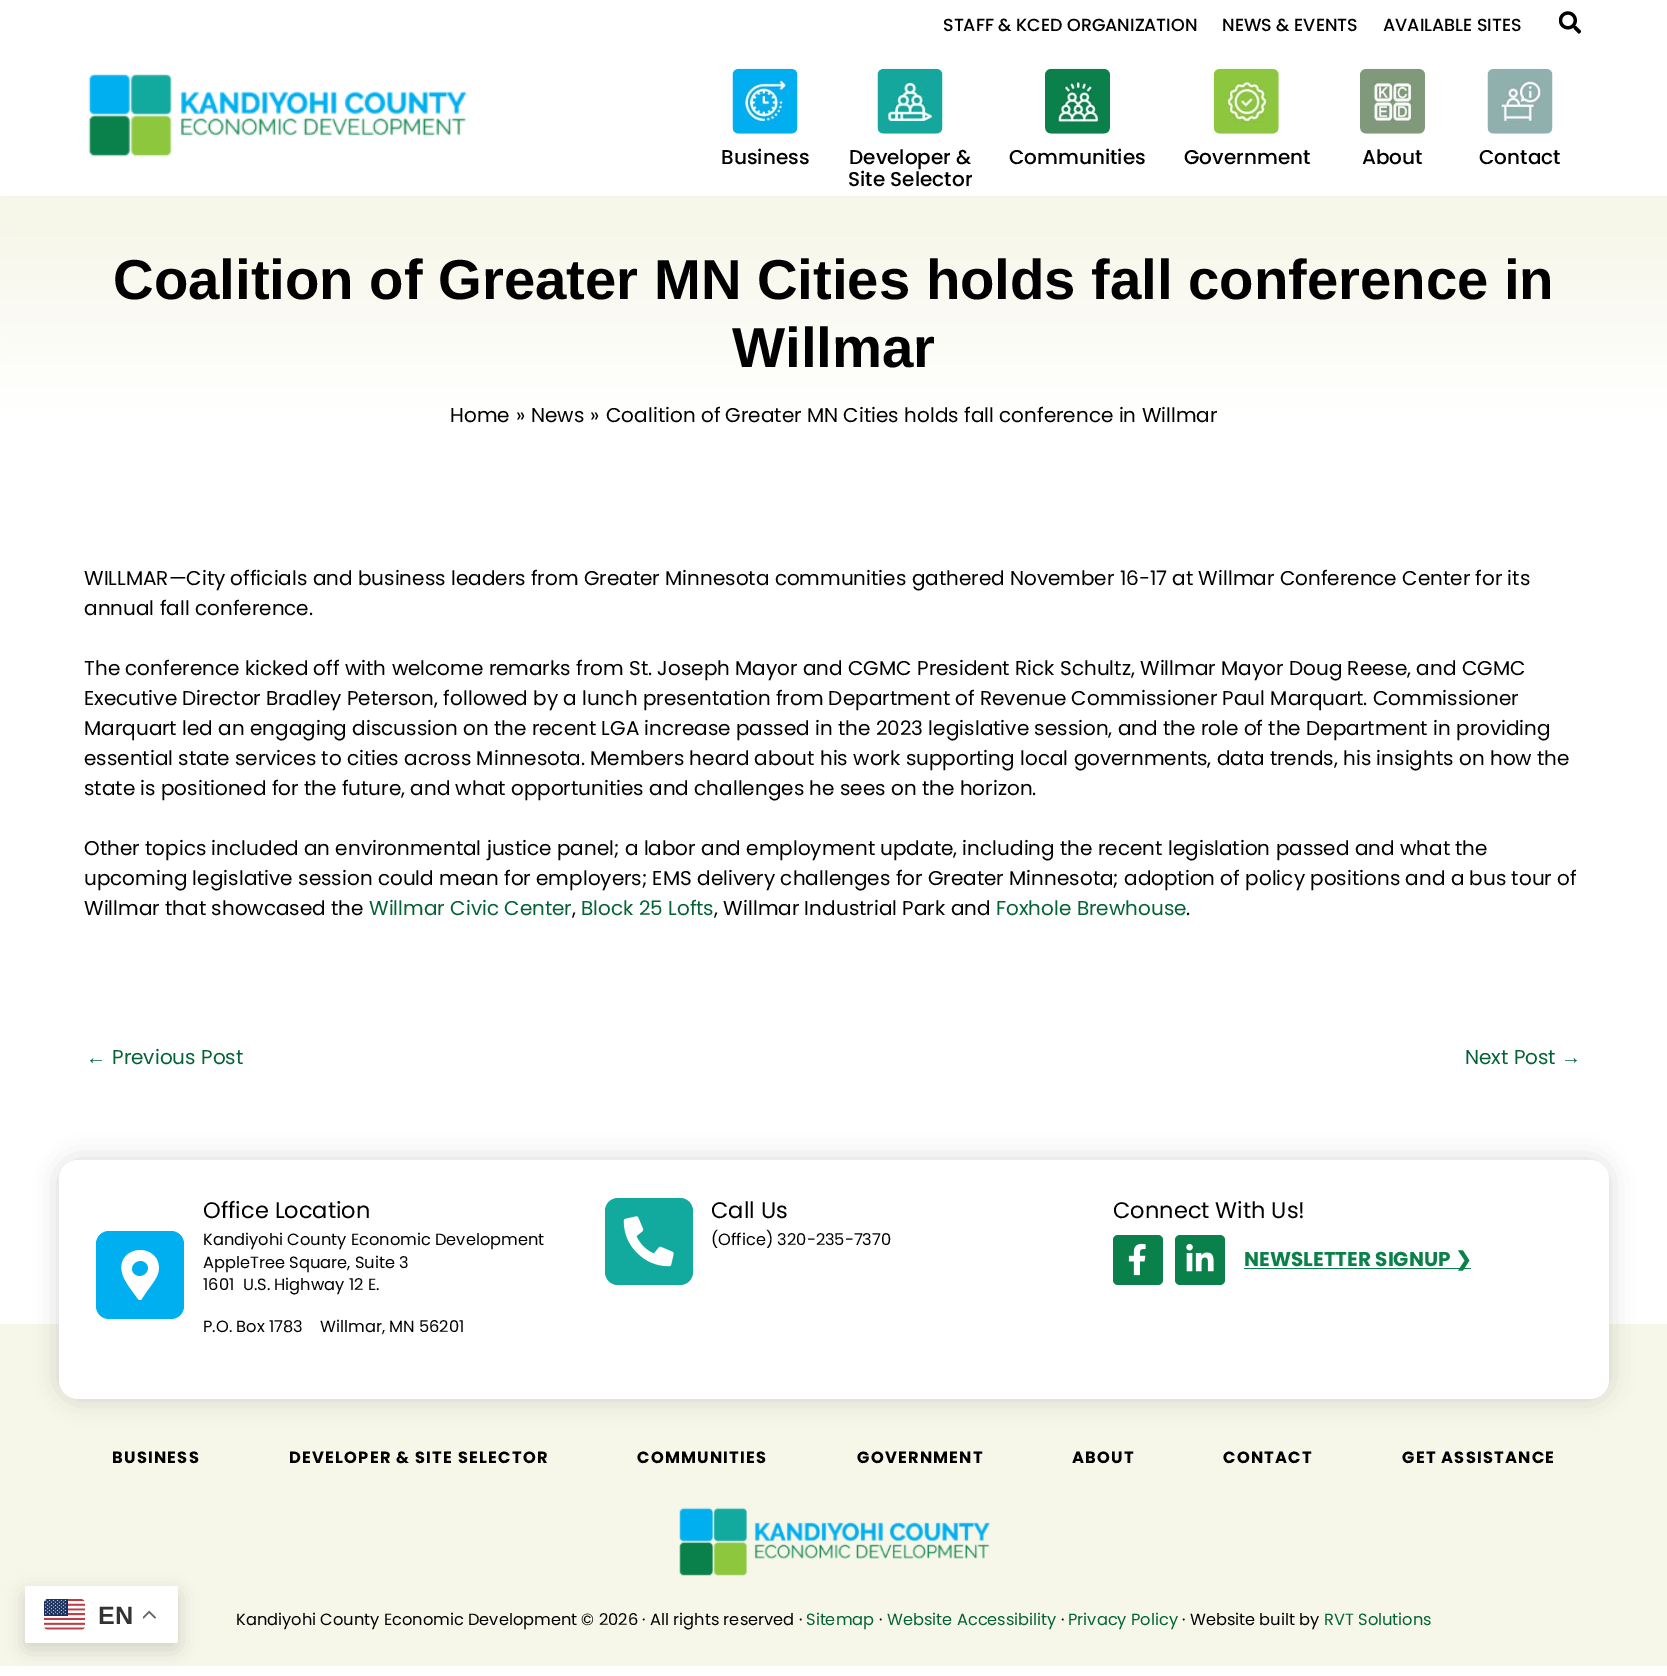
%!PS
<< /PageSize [1667 1676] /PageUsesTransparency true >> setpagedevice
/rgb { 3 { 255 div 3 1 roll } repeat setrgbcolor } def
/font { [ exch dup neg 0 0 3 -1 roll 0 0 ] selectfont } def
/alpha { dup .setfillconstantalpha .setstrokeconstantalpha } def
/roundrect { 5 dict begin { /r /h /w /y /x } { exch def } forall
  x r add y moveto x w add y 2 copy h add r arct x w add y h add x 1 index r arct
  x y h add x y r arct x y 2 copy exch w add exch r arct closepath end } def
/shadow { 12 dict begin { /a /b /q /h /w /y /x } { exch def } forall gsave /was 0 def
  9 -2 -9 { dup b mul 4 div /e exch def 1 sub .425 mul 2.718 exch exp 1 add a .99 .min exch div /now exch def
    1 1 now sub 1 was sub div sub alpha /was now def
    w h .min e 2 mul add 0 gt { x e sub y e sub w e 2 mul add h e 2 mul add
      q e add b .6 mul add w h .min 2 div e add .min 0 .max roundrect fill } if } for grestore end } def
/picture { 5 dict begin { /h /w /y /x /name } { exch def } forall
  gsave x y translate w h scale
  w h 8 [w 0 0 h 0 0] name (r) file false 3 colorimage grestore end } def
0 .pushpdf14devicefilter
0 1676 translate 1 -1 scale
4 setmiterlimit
255 255 255 rgb
0 0 1667 1676 rectfill
(img/1.rgb) 1559 11 22 23 picture
(img/2.rgb) 88 73 379 84 picture
(img/3.rgb) 732 68 66 66 picture
(img/4.rgb) 877 68 66 66 picture
(img/5.rgb) 1045 68 65 66 picture
(img/6.rgb) 1213 68 66 66 picture
(img/7.rgb) 1360 68 65 66 picture
(img/8.rgb) 1487 68 66 66 picture
(img/9.rgb) 0 196 1667 284 picture
246 246 233 rgb
0 1324 1667 342 rectfill
0 0 0 rgb
59 1160 1550 239 19 12.5 0.15 shadow
255 255 255 rgb
59 1160 1550 239 19 roundrect fill
0 175 239 rgb
96 1231 88 88 13 roundrect fill
255 255 255 rgb
138 1299 moveto 134 1293 123 1280 122 1272 curveto 117 1252 144 1242 156 1258 curveto 164 1271 154 1281 147 1291 curveto 141 1300 lineto 140 1300 139 1300 138 1299 curveto closepath 134 1274 moveto 142 1281 153 1270 146 1263 curveto 138 1256 127 1267 134 1274 curveto closepath fill
18 169 159 rgb
605 1198 88 87 13 roundrect fill
(img/10.rgb) 623 1216 51 51 picture
10 129 74 rgb
1113 1235 50 50 5 roundrect fill
(img/11.rgb) 1128 1243 18 33 picture
1175 1235 50 50 5 roundrect fill
(img/12.rgb) 1186 1243 28 29 picture
1244 1268 227 1 rectfill
(img/13.rgb) 679 1507 311 69 picture
0 0 0 rgb
25 1593 153 56 2.5 9.5 0.15 shadow
255 255 255 rgb
25 1586 153 57 2.5 roundrect fill
(img/14.rgb) 44 1599 41 31 picture
(img/15.rgb) 143 1610 13 9 picture
/Poppins-Medium 17.5 font
0 0 0 rgb
[
  [(STAFF & KCED ORGANIZATION) 943 31]
  [(NEWS & EVENTS) 1222 31]
  [(AVAILABLE SITES) 1383 31]
] { aload pop moveto show } forall
/Poppins-Medium 20 font
[
  [(Business) 721 164]
  [(Developer &) 849 164]
  [(Site Selector) 848 186]
  [(Communities) 1009 164]
  [(Government) 1184 164]
  [(About) 1362 164]
  [(Contact) 1479 164]
] { aload pop moveto show } forall
/LiberationSans-Bold 56.25 font
113 299 moveto (Coalition of Greater MN Cities holds fall conference in) show
732 367 moveto (Willmar) show
/Poppins-Regular 20 font
[
  [(Home) 450 422]
  [(») 516 422]
  [(News) 531 422]
  [(») 590 422]
  [(Coalition of Greater MN Cities holds fall conference in Willmar) 606 422]
  [(WILLMAR—City officials and business leaders from Greater Minnesota communities gathered November 16-17 at Willmar Conference Center for its) 84 585]
  [(annual fall conference.) 84 615]
  [(The conference kicked off with welcome remarks from St. Joseph Mayor and CGMC President Rick Schultz, Willmar Mayor Doug Reese, and CGMC) 84 675]
  [(Executive Director Bradley Peterson, followed by a lunch presentation from Department of Revenue Commissioner Paul Marquart. Commissioner) 84 705]
  [(Marquart led an engaging discussion on the recent LGA increase passed in the 2023 legislative session, and the role of the Department in providing) 84 735]
  [(essential state services to cities across Minnesota. Members heard about his work supporting local governments, data trends, his insights on how the) 84 765]
  [(state is positioned for the future, and what opportunities and challenges he sees on the horizon.) 84 795]
  [(Other topics included an environmental justice panel; a labor and employment update, including the recent legislation passed and what the) 84 855]
  [(upcoming legislative session could mean for employers; EMS delivery challenges for Greater Minnesota; adoption of policy positions and a bus tour of) 84 885]
  [(Willmar that showcased the) 84 915]
] { aload pop moveto show } forall
3 98 54 rgb
369 915 moveto (Willmar Civic Center) show
0 0 0 rgb
572 915 moveto (,) show
3 98 54 rgb
581 915 moveto (Block 25 Lofts) show
0 0 0 rgb
714 915 moveto (, Willmar Industrial Park and) show
3 98 54 rgb
996 915 moveto (Foxhole Brewhouse) show
0 0 0 rgb
1186 915 moveto (.) show
/LiberationSans-Regular 20 font
3 98 54 rgb
86 1064 moveto (←) show
/Poppins-Regular 20 font
112 1064 moveto (Previous Post) show
1465 1064 moveto (Next Post) show
/LiberationSans-Regular 20 font
1561 1064 moveto (→) show
/Poppins-Regular 22.5 font
0 0 0 rgb
203 1218 moveto (Office Location) show
/Poppins-Regular 16.25 font
[
  [(Kandiyohi County Economic Development) 203 1245]
  [(AppleTree Square, Suite 3) 203 1268]
  [(1601  U.S. Highway 12 E.) 203 1290]
  [(P.O. Box 1783    Willmar, MN 56201) 203 1332]
] { aload pop moveto show } forall
/Poppins-Regular 22.5 font
711 1218 moveto (Call Us) show
/Poppins-Regular 16.25 font
711 1245 moveto (\(Office\) 320-235-7370) show
/Poppins-Regular 22.5 font
1113 1218 moveto (Connect With Us!) show
/Poppins-Bold 20 font
10 129 74 rgb
1244 1266 moveto (NEWSLETTER SIGNUP) show
/DejaVuSans-Bold 20 font
1455 1266 moveto (❯) show
/Poppins-Bold 16.25 font
0 0 0 rgb
112 1463 moveto 1.25 0 (BUSINESS) ashow
289 1463 moveto 1.25 0 (DEVELOPER & SITE SELECTOR) ashow
637 1463 moveto 1.25 0 (COMMUNITIES) ashow
857 1463 moveto 1.25 0 (GOVERNMENT) ashow
1072 1463 moveto 1.25 0 (ABOUT) ashow
1223 1463 moveto 1.25 0 (CONTACT) ashow
1402 1463 moveto 1.25 0 (GET ASSISTANCE) ashow
/Poppins-Regular 16.25 font
236 1625 moveto (Kandiyohi County Economic Development © 2026 · All rights reserved ·) show
3 98 54 rgb
806 1625 moveto (Sitemap) show
0 0 0 rgb
879 1625 moveto (·) show
3 98 54 rgb
887 1625 moveto (Website Accessibility) show
0 0 0 rgb
1061 1625 moveto (·) show
3 98 54 rgb
1068 1625 moveto (Privacy Policy) show
0 0 0 rgb
1182 1625 moveto (· Website built by) show
3 98 54 rgb
1324 1625 moveto (RVT Solutions) show
/LiberationSans-Bold 25 font
51 51 51 rgb
98 1624 moveto (EN) show
.poppdf14devicefilter showpage
